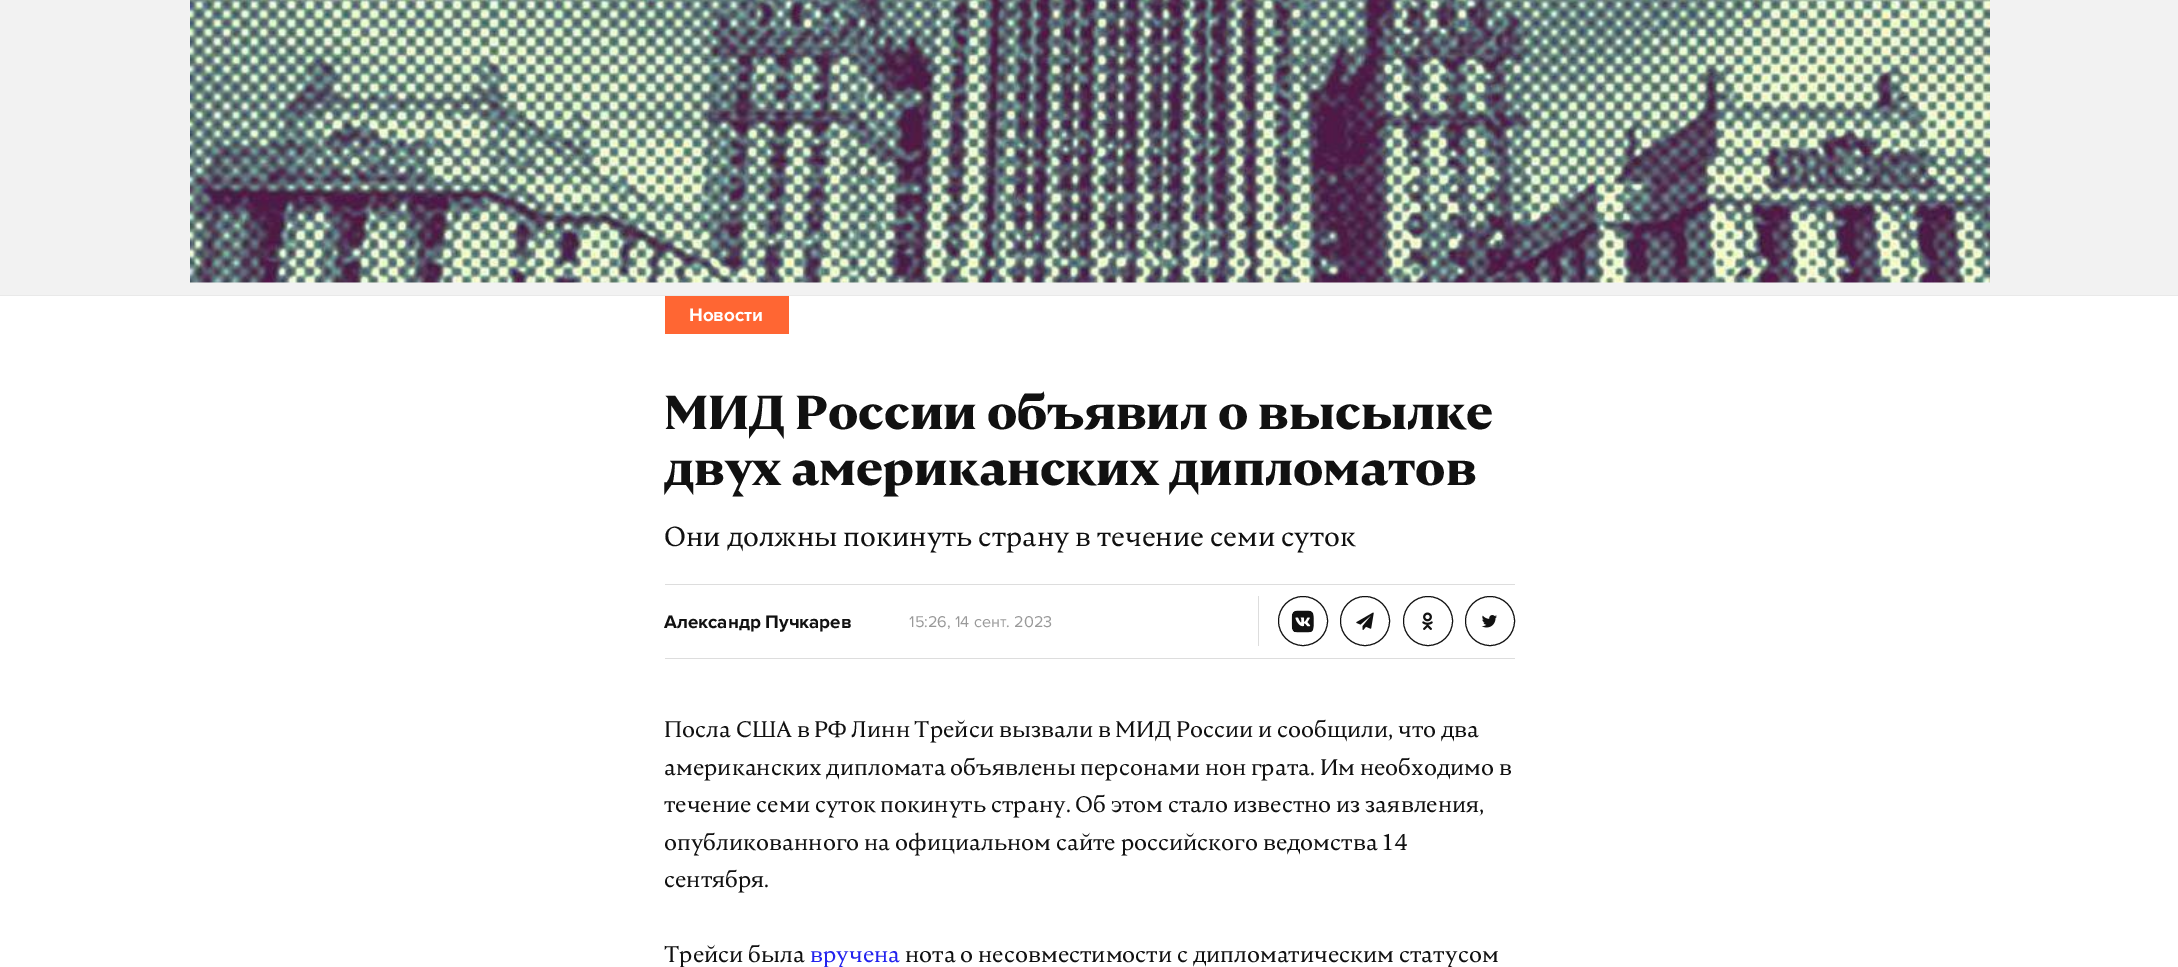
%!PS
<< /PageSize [2178 967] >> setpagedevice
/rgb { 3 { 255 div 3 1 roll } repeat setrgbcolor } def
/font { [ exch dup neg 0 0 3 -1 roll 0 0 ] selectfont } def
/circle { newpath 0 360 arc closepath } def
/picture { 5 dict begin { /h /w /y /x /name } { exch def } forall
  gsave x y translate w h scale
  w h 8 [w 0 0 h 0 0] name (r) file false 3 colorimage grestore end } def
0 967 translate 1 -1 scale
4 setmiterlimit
242 242 242 rgb
0 0 2178 967 rectfill
(img/1.rgb) 190 0 1800 283 picture
[
  [0 296 2178 671 255 255 255]
  [0 295 2178 1 233 233 233]
  [665 296 124 38 255 102 51]
  [665 584 850 1 221 221 221]
  [665 658 850 1 221 221 221]
  [1258 596 1 50 221 221 221]
] { aload pop rgb rectfill } forall
17 17 17 rgb
1303 621 24.5 circle stroke
(img/2.rgb) 1291 610 23 23 picture
1365 621 24.5 circle stroke
(img/3.rgb) 1356 612 18 18 picture
1428 621 24.5 circle stroke
(img/4.rgb) 1422 612 11 18 picture
1490 621 24.5 circle stroke
(img/5.rgb) 1481 615 16 13 picture
/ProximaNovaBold-Regular 18.75 font
255 255 255 rgb
689 321 moveto (Новости) show
/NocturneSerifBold-Regular 47.5 font
17 17 17 rgb
664 429 moveto (МИД России объявил о высылке) show
664 485 moveto (двух американских дипломатов) show
/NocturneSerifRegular-Regular 27.5 font
664 546 moveto (Они должны покинуть страну в течение семи суток) show
/ProximaNovaBold-Regular 18.75 font
664 628 moveto (Александр Пучкарев) show
/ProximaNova-Regular 16.25 font
153 153 153 rgb
909 627 moveto (15:26, 14 сент. 2023) show
/NocturneSerifRegular-Regular 22.5 font
17 17 17 rgb
[
  [(Посла США в РФ Линн Трейси вызвали в МИД России и сообщили, что два) 664 737]
  [(американских дипломата объявлены персонами нон грата. Им необходимо в) 664 775]
  [(течение семи суток покинуть страну. Об этом стало известно из заявления,) 664 812]
  [(опубликованного на официальном сайте российского ведомства 14) 664 850]
  [(сентября.) 664 887]
  [(Трейси была) 664 962]
] { aload pop moveto show } forall
34 34 238 rgb
810 962 moveto (вручена) show
17 17 17 rgb
905 962 moveto (нота о несовместимости с дипломатическим статусом) show
showpage
